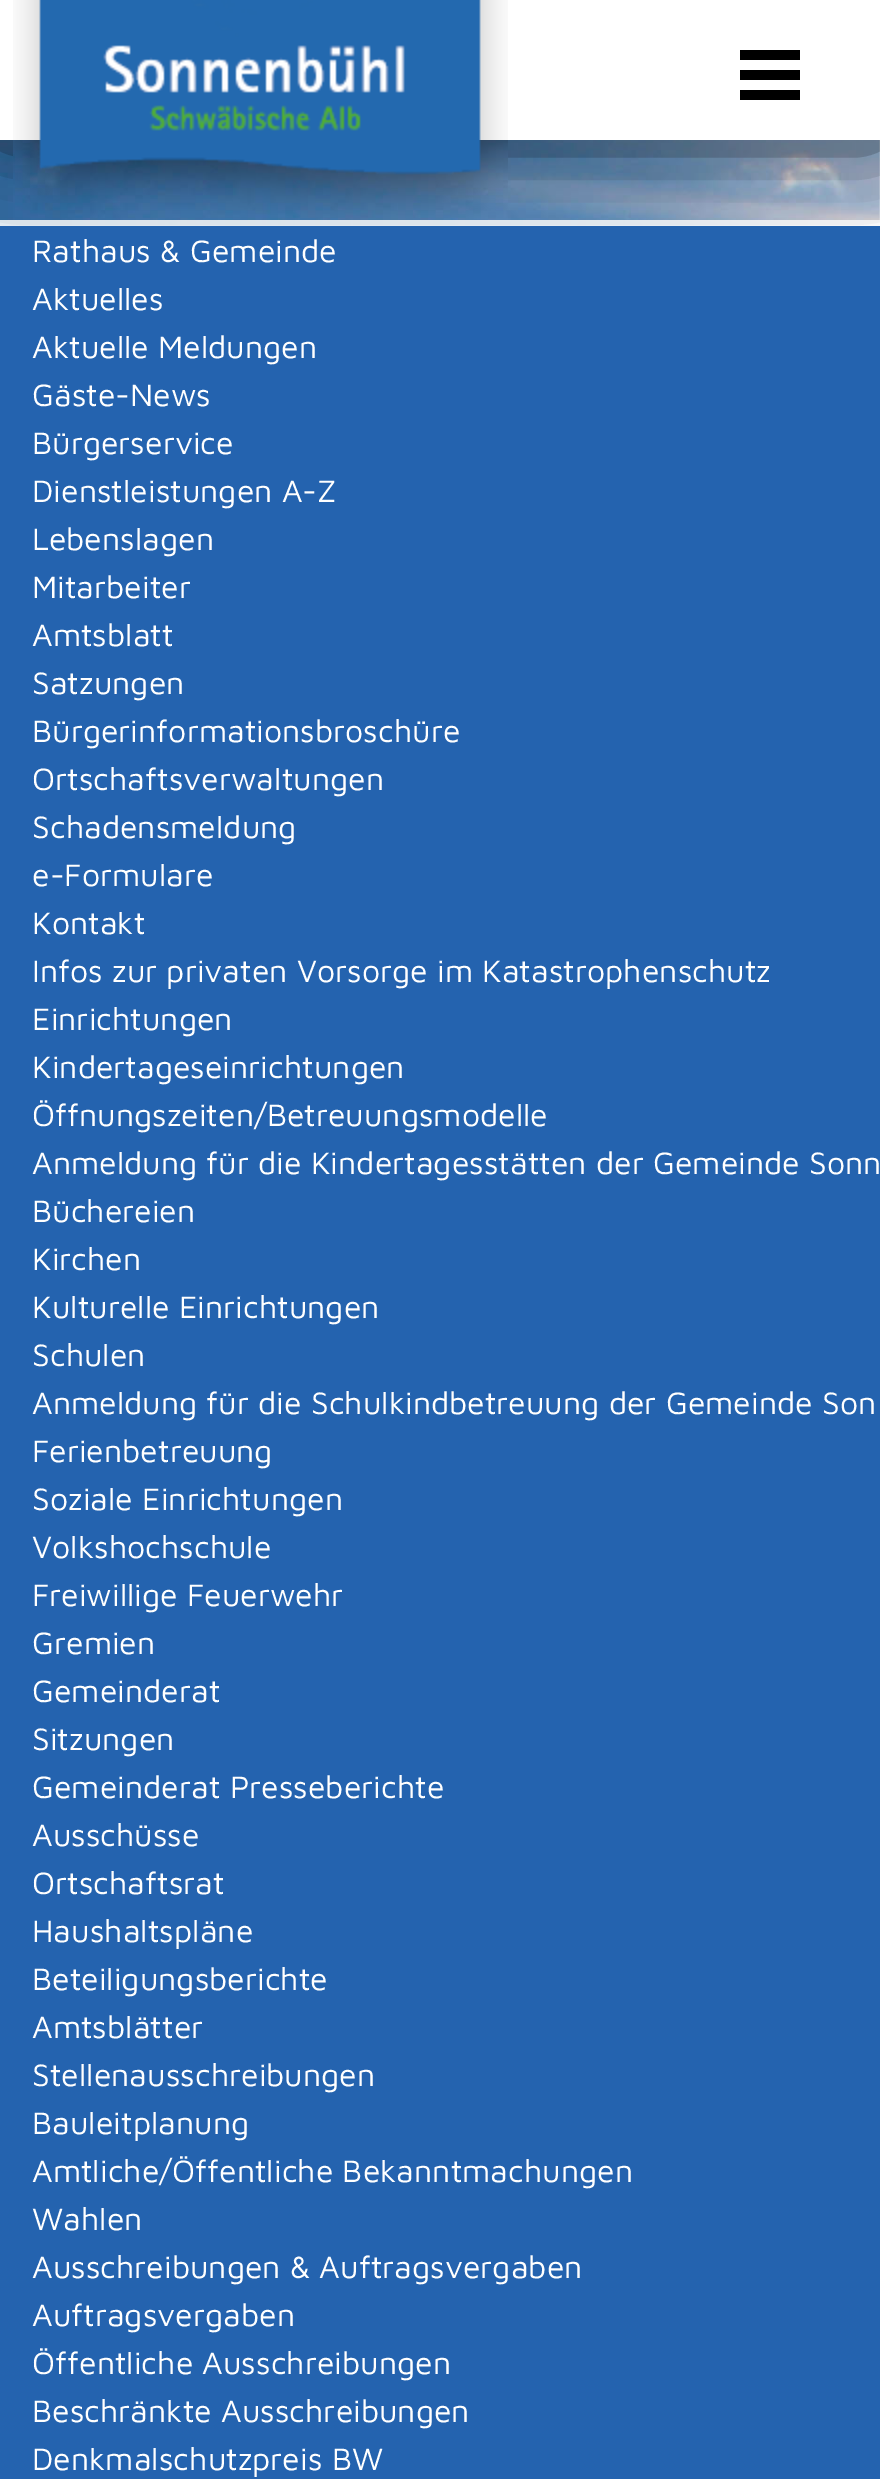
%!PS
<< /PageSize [880 2479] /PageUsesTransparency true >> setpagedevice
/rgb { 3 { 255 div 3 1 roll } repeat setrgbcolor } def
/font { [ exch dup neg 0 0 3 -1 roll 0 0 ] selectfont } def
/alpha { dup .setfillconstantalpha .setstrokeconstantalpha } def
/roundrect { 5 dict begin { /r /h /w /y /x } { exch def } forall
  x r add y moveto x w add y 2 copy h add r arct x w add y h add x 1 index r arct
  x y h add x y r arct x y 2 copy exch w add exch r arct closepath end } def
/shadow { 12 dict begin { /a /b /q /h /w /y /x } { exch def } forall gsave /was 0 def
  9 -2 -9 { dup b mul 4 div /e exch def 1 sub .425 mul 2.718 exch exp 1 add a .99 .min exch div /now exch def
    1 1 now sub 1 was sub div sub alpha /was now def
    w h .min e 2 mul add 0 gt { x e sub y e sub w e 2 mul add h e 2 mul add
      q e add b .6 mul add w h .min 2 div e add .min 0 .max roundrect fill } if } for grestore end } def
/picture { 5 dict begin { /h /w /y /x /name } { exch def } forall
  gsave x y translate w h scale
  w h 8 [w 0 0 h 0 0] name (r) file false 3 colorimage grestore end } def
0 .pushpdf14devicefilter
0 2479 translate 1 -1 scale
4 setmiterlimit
255 255 255 rgb
0 0 880 2479 rectfill
(img/1.rgb) 0 140 880 86 picture
0.85 alpha
0 220 880 6 rectfill
1 alpha
0 0 0 rgb
0 -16 880 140 0 45 1 shadow
[
  [0 0 880 140 255 255 255]
  [740 50 60 10 0 0 0]
  [740 70 60 10 0 0 0]
  [740 90 60 10 0 0 0]
] { aload pop rgb rectfill } forall
(img/2.rgb) 13 0 495 220 picture
36 99 175 rgb
0 226 880 2253 rectfill
/MavenPro-Regular 32 font
255 255 255 rgb
[
  [(Rathaus & Gemeinde) 32 262]
  [(Aktuelles) 32 310]
  [(Aktuelle Meldungen) 32 358]
  [(Gäste-News) 32 406]
  [(Bürgerservice) 32 454]
  [(Dienstleistungen A-Z) 32 502]
  [(Lebenslagen) 32 550]
  [(Mitarbeiter) 32 598]
  [(Amtsblatt) 32 646]
  [(Satzungen) 32 694]
  [(Bürgerinformationsbroschüre) 32 742]
  [(Ortschaftsverwaltungen) 32 790]
  [(Schadensmeldung) 32 838]
  [(e-Formulare) 32 886]
  [(Kontakt) 32 934]
  [(Infos zur privaten Vorsorge im Katastrophenschutz) 32 982]
  [(Einrichtungen) 32 1030]
  [(Kindertageseinrichtungen) 32 1078]
  [(Öffnungszeiten/Betreuungsmodelle) 32 1126]
  [(Anmeldung für die Kindertagesstätten der Gemeinde Sonn) 32 1174]
  [(Büchereien) 32 1222]
  [(Kirchen) 32 1270]
  [(Kulturelle Einrichtungen) 32 1318]
  [(Schulen) 32 1366]
  [(Anmeldung für die Schulkindbetreuung der Gemeinde Son) 32 1414]
  [(Ferienbetreuung) 32 1462]
  [(Soziale Einrichtungen) 32 1510]
  [(Volkshochschule) 32 1558]
  [(Freiwillige Feuerwehr) 32 1606]
  [(Gremien) 32 1654]
  [(Gemeinderat) 32 1702]
  [(Sitzungen) 32 1750]
  [(Gemeinderat Presseberichte) 32 1798]
  [(Ausschüsse) 32 1846]
  [(Ortschaftsrat) 32 1894]
  [(Haushaltspläne) 32 1942]
  [(Beteiligungsberichte) 32 1990]
  [(Amtsblätter) 32 2038]
  [(Stellenausschreibungen) 32 2086]
  [(Bauleitplanung) 32 2134]
  [(Amtliche/Öffentliche Bekanntmachungen) 32 2182]
  [(Wahlen) 32 2230]
  [(Ausschreibungen & Auftragsvergaben) 32 2278]
  [(Auftragsvergaben) 32 2326]
  [(Öffentliche Ausschreibungen) 32 2374]
  [(Beschränkte Ausschreibungen) 32 2422]
  [(Denkmalschutzpreis BW) 32 2470]
] { aload pop moveto show } forall
.poppdf14devicefilter showpage
